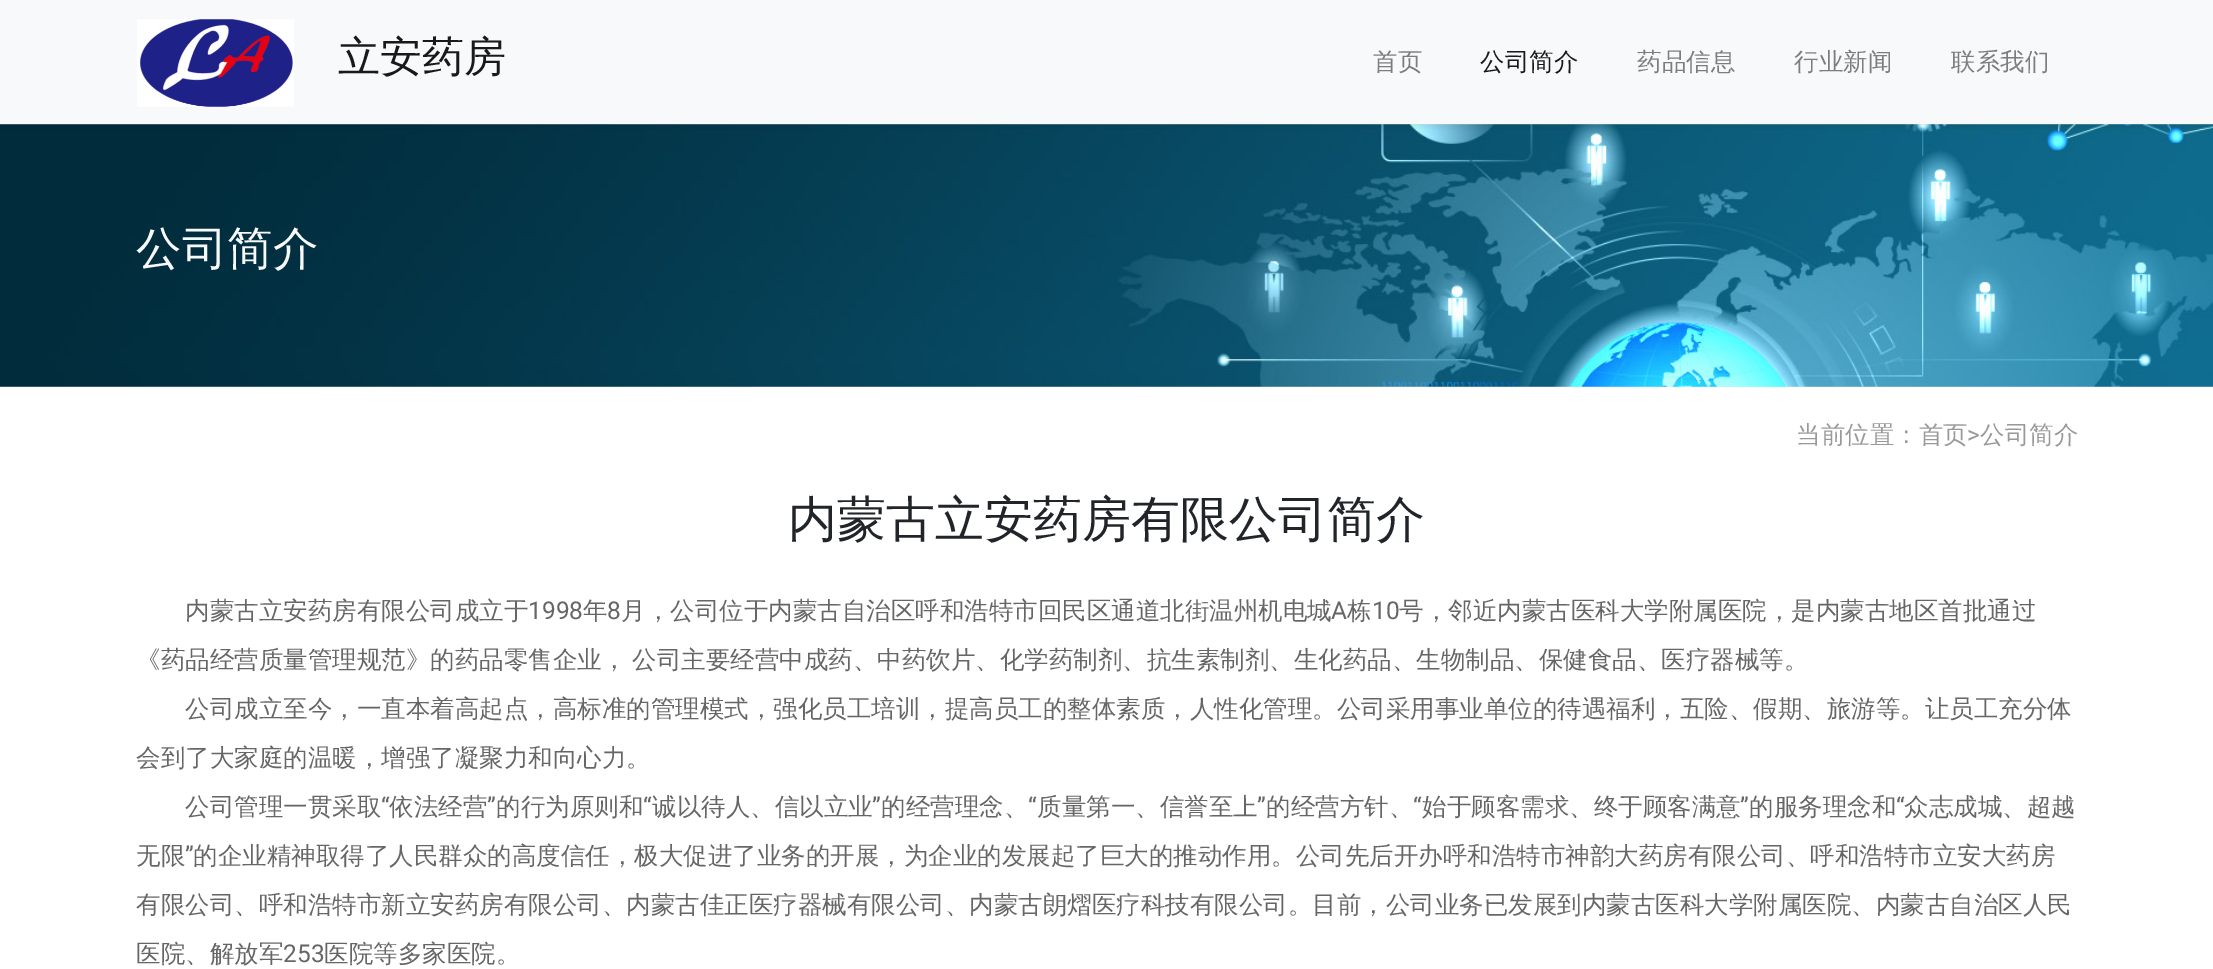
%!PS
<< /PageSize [2213 969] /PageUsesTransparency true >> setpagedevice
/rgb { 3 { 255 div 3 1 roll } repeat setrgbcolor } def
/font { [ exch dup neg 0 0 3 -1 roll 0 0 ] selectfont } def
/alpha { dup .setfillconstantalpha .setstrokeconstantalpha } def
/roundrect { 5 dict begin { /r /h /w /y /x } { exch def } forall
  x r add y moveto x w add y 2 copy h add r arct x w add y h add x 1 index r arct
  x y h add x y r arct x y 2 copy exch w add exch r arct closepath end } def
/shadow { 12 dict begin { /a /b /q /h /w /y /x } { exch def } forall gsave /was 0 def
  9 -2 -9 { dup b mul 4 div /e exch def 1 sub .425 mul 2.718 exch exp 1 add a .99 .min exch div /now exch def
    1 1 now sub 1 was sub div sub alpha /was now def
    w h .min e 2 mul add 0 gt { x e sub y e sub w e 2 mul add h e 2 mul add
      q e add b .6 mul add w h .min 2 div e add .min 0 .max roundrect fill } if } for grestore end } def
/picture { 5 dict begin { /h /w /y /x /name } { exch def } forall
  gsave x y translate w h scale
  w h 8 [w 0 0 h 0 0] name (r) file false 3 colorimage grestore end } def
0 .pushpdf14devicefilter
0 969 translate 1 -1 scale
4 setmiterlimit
255 255 255 rgb
0 0 2213 969 rectfill
(img/2.rgb) 0 124 2213 263 picture
0 0 0 rgb
0 4 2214 124 0 3 0.07 shadow
248 249 250 rgb
0 0 2213 124 rectfill
(img/1.rgb) 137 19 157 88 picture
/WenQuanYiZenHei-Medium 42 font
25 25 25 rgb
338 71 moveto (立安药房) show
/WenQuanYiZenHei-Medium 24.5 font
124 125 125 rgb
1373 70 moveto (首页) show
25 25 25 rgb
1480 70 moveto (公司简介) show
124 125 125 rgb
[
  [(药品信息) 1637 70]
  [(行业新闻) 1794 70]
  [(联系我们) 1951 70]
] { aload pop moveto show } forall
/WenQuanYiZenHei-Medium 45.5 font
248 249 250 rgb
136 264 moveto (公司简介) show
/WenQuanYiZenHei-Medium 24.5 font
153 153 153 rgb
1796 443 moveto (当前位置：首页) show
/Roboto-Regular 24.5 font
1967 443 moveto (>) show
/WenQuanYiZenHei-Medium 24.5 font
1980 443 moveto (公司简介) show
/WenQuanYiZenHei-Medium 49 font
33 37 41 rgb
788 536 moveto (内蒙古立安药房有限公司简介) show
/WenQuanYiZenHei-Medium 24.5 font
102 102 102 rgb
185 619 moveto (内蒙古立安药房有限公司成立于) show
/Roboto-Regular 24.5 font
528 619 moveto (1998) show
/WenQuanYiZenHei-Medium 24.5 font
583 619 moveto (年) show
/Roboto-Regular 24.5 font
607 619 moveto (8) show
/WenQuanYiZenHei-Medium 24.5 font
621 619 moveto (月，公司位于内蒙古自治区呼和浩特市回民区通道北街温州机电城) show
/Roboto-Regular 24.5 font
1331 619 moveto (A) show
/WenQuanYiZenHei-Medium 24.5 font
1347 619 moveto (栋) show
/Roboto-Regular 24.5 font
1372 619 moveto (10) show
/WenQuanYiZenHei-Medium 24.5 font
1399 619 moveto (号，邻近内蒙古医科大学附属医院，是内蒙古地区首批通过) show
136 668 moveto -1 0 32 (《药品经营质量管理规范》的药品零售企业， 公司主要经营中成药、中药饮片、化学药制剂、抗生素制剂、生化药品、生物制品、保健食品、医疗器械等。) widthshow
[
  [(公司成立至今，一直本着高起点，高标准的管理模式，强化员工培训，提高员工的整体素质，人性化管理。公司采用事业单位的待遇福利，五险、假期、旅游等。让员工充分体) 185 717]
  [(会到了大家庭的温暖，增强了凝聚力和向心力。) 136 766]
  [(公司管理一贯采取) 185 815]
] { aload pop moveto show } forall
/Roboto-Regular 24.5 font
381 815 moveto (“) show
/WenQuanYiZenHei-Medium 24.5 font
389 815 moveto (依法经营) show
/Roboto-Regular 24.5 font
487 815 moveto (”) show
/WenQuanYiZenHei-Medium 24.5 font
496 815 moveto (的行为原则和) show
/Roboto-Regular 24.5 font
643 815 moveto (“) show
/WenQuanYiZenHei-Medium 24.5 font
652 815 moveto (诚以待人、信以立业) show
/Roboto-Regular 24.5 font
872 815 moveto (”) show
/WenQuanYiZenHei-Medium 24.5 font
881 815 moveto (的经营理念、) show
/Roboto-Regular 24.5 font
1028 815 moveto (“) show
/WenQuanYiZenHei-Medium 24.5 font
1037 815 moveto (质量第一、信誉至上) show
/Roboto-Regular 24.5 font
1257 815 moveto (”) show
/WenQuanYiZenHei-Medium 24.5 font
1266 815 moveto (的经营方针、) show
/Roboto-Regular 24.5 font
1413 815 moveto (“) show
/WenQuanYiZenHei-Medium 24.5 font
1422 815 moveto (始于顾客需求、终于顾客满意) show
/Roboto-Regular 24.5 font
1740 815 moveto (”) show
/WenQuanYiZenHei-Medium 24.5 font
1749 815 moveto (的服务理念和) show
/Roboto-Regular 24.5 font
1896 815 moveto (“) show
/WenQuanYiZenHei-Medium 24.5 font
1904 815 moveto (众志成城、超越) show
136 864 moveto (无限) show
/Roboto-Regular 24.5 font
185 864 moveto (”) show
/WenQuanYiZenHei-Medium 24.5 font
[
  [(的企业精神取得了人民群众的高度信任，极大促进了业务的开展，为企业的发展起了巨大的推动作用。公司先后开办呼和浩特市神韵大药房有限公司、呼和浩特市立安大药房) 193 864]
  [(有限公司、呼和浩特市新立安药房有限公司、内蒙古佳正医疗器械有限公司、内蒙古朗熠医疗科技有限公司。目前，公司业务已发展到内蒙古医科大学附属医院、内蒙古自治区人民) 136 913]
  [(医院、解放军) 136 962]
] { aload pop moveto show } forall
/Roboto-Regular 24.5 font
283 962 moveto (253) show
/WenQuanYiZenHei-Medium 24.5 font
324 962 moveto (医院等多家医院。) show
.poppdf14devicefilter showpage
